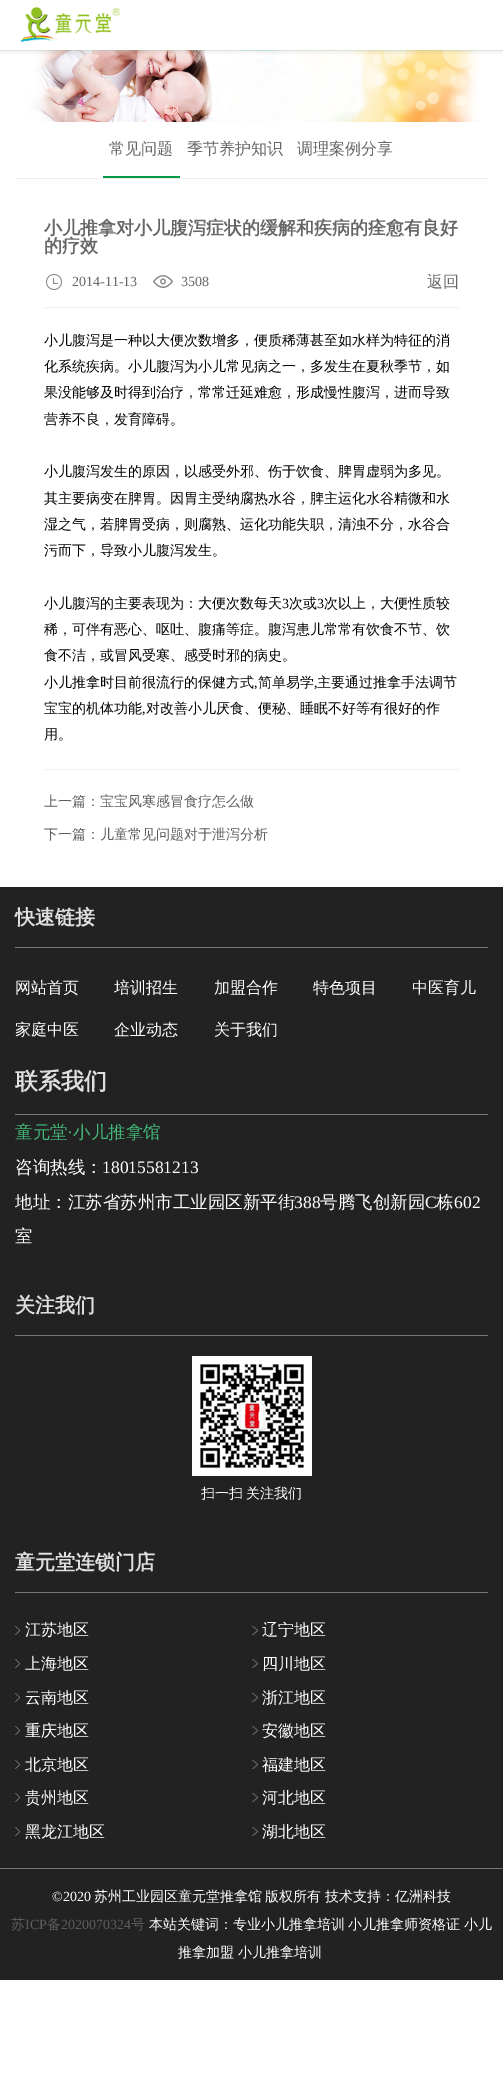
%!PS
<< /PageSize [503 2074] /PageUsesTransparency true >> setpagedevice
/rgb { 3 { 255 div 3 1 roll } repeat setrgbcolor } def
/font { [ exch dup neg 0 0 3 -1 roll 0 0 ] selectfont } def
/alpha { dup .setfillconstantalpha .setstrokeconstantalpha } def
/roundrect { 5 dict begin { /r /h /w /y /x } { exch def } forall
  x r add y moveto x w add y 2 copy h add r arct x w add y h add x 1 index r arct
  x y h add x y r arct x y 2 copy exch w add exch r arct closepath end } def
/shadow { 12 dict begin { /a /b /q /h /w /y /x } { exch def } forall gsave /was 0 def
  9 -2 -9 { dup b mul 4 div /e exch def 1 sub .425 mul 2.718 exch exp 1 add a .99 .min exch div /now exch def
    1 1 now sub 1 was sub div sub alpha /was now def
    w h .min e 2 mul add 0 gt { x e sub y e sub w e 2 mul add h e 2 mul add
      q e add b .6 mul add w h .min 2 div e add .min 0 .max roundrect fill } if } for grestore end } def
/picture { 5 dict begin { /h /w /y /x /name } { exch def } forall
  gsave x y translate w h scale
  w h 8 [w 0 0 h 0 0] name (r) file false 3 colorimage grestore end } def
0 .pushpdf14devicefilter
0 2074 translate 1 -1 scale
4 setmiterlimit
255 255 255 rgb
0 0 503 2074 rectfill
(img/2.rgb) 0 50 503 72 picture
gsave
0 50 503 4 rectclip
0 0 0 rgb
0 0 503 50 0 5 0.1 shadow
grestore
(img/1.rgb) 20 7 100 35 picture
[
  [15 178 473 1 238 238 238]
  [103 176 77 2 0 153 68]
  [44 307 415 1 240 240 240]
] { aload pop rgb rectfill } forall
(img/3.rgb) 46 274 16 16 picture
(img/4.rgb) 153 275 20 13 picture
[
  [44 769 415 1 240 240 240]
  [0 887 503 1093 34 34 34]
  [15 947 473 1 119 120 120]
  [15 1114 473 1 119 120 120]
  [15 1335 473 1 119 120 120]
] { aload pop rgb rectfill } forall
(img/5.rgb) 192 1356 120 120 picture
15 1592 473 1 rectfill
(img/6.rgb) 15 1626 5 9 picture
(img/7.rgb) 252 1626 6 9 picture
(img/6.rgb) 15 1659 5 9 picture
(img/7.rgb) 252 1659 6 9 picture
(img/6.rgb) 15 1693 5 9 picture
(img/7.rgb) 252 1693 6 9 picture
(img/6.rgb) 15 1726 5 9 picture
(img/7.rgb) 252 1726 6 9 picture
(img/6.rgb) 15 1760 5 9 picture
(img/7.rgb) 252 1760 6 9 picture
(img/6.rgb) 15 1793 5 9 picture
(img/7.rgb) 252 1793 6 9 picture
(img/6.rgb) 15 1827 5 9 picture
(img/7.rgb) 252 1827 6 9 picture
0 1868 503 1 rectfill
/WenQuanYiZenHei-Medium 16 font
102 102 102 rgb
[
  [(常见问题) 109 154]
  [(季节养护知识) 187 154]
  [(调理案例分享) 297 154]
] { aload pop moveto show } forall
/WenQuanYiZenHei-Bold 18 font
44 234 moveto (小儿推拿对小儿腹泻症状的缓解和疾病的痊愈有良好) show
44 252 moveto (的疗效) show
/LiberationSerif-Regular 14 font
72 286 moveto (2014-11-13) show
181 286 moveto (3508) show
/WenQuanYiZenHei-Medium 16 font
427 287 moveto (返回) show
/WenQuanYiZenHei-Medium 14 font
0 0 0 rgb
[
  [(小儿腹泻是一种以大便次数增多，便质稀薄甚至如水样为特征的消) 44 345]
  [(化系统疾病。小儿腹泻为小儿常见病之一，多发生在夏秋季节，如) 44 371]
  [(果没能够及时得到治疗，常常迁延难愈，形成慢性腹泻，进而导致) 44 397]
  [(营养不良，发育障碍。) 44 424]
  [(小儿腹泻发生的原因，以感受外邪、伤于饮食、脾胃虚弱为多见。) 44 476]
  [(其主要病变在脾胃。因胃主受纳腐热水谷，脾主运化水谷精微和水) 44 503]
  [(湿之气，若脾胃受病，则腐熟、运化功能失职，清浊不分，水谷合) 44 529]
  [(污而下，导致小儿腹泻发生。) 44 555]
  [(小儿腹泻的主要表现为：大便次数每天) 44 608]
] { aload pop moveto show } forall
/LiberationSerif-Regular 14 font
282 608 moveto (3) show
/WenQuanYiZenHei-Medium 14 font
289 608 moveto (次或) show
/LiberationSerif-Regular 14 font
317 608 moveto (3) show
/WenQuanYiZenHei-Medium 14 font
[
  [(次以上，大便性质较) 324 608]
  [(稀，可伴有恶心、呕吐、腹痛等症。腹泻患儿常常有饮食不节、饮) 44 634]
  [(食不洁，或冒风受寒、感受时邪的病史。) 44 660]
  [(小儿推拿时目前很流行的保健方式) 44 687]
] { aload pop moveto show } forall
/LiberationSerif-Regular 14 font
254 687 moveto (,) show
/WenQuanYiZenHei-Medium 14 font
258 687 moveto (简单易学) show
/LiberationSerif-Regular 14 font
314 687 moveto (,) show
/WenQuanYiZenHei-Medium 14 font
317 687 moveto (主要通过推拿手法调节) show
44 713 moveto (宝宝的机体功能) show
/LiberationSerif-Regular 14 font
142 713 moveto (,) show
/WenQuanYiZenHei-Medium 14 font
146 713 moveto (对改善小儿厌食、便秘、睡眠不好等有很好的作) show
44 739 moveto (用。) show
92 92 92 rgb
44 806 moveto (上一篇：宝宝风寒感冒食疗怎么做) show
44 839 moveto (下一篇：儿童常见问题对于泄泻分析) show
/WenQuanYiZenHei-Bold 20 font
223 223 223 rgb
15 924 moveto (快速链接) show
/WenQuanYiZenHei-Medium 16 font
255 255 255 rgb
[
  [(网站首页) 15 993]
  [(培训招生) 114 993]
  [(加盟合作) 214 993]
  [(特色项目) 313 993]
  [(中医育儿) 412 993]
  [(家庭中医) 15 1035]
  [(企业动态) 114 1035]
  [(关于我们) 214 1035]
] { aload pop moveto show } forall
/WenQuanYiZenHei-Bold 23 font
223 223 223 rgb
15 1089 moveto (联系我们) show
/WenQuanYiZenHei-Medium 17.5 font
67 183 120 rgb
15 1138 moveto (童元堂) show
/LiberationSerif-Regular 17.5 font
67 1138 moveto (·) show
/WenQuanYiZenHei-Medium 17.5 font
73 1138 moveto (小儿推拿馆) show
255 255 255 rgb
15 1173 moveto (咨询热线：) show
/LiberationSerif-Regular 17.5 font
102 1173 moveto (18015581213) show
/WenQuanYiZenHei-Medium 17.5 font
15 1208 moveto (地址：江苏省苏州市工业园区新平街) show
/LiberationSerif-Regular 17.5 font
294 1208 moveto (388) show
/WenQuanYiZenHei-Medium 17.5 font
320 1208 moveto (号腾飞创新园) show
/LiberationSerif-Regular 17.5 font
425 1208 moveto (C) show
/WenQuanYiZenHei-Medium 17.5 font
436 1208 moveto (栋) show
/LiberationSerif-Regular 17.5 font
454 1208 moveto (602) show
/WenQuanYiZenHei-Medium 17.5 font
15 1242 moveto (室) show
/WenQuanYiZenHei-Bold 20 font
223 223 223 rgb
15 1312 moveto (关注我们) show
/WenQuanYiZenHei-Medium 14 font
255 255 255 rgb
201 1498 moveto -1 0 32 (扫一扫 关注我们) widthshow
/WenQuanYiZenHei-Bold 20 font
223 223 223 rgb
15 1569 moveto (童元堂连锁门店) show
/WenQuanYiZenHei-Medium 16 font
255 255 255 rgb
[
  [(江苏地区) 25 1635]
  [(辽宁地区) 262 1635]
  [(上海地区) 25 1669]
  [(四川地区) 262 1669]
  [(云南地区) 25 1703]
  [(浙江地区) 262 1703]
  [(重庆地区) 25 1736]
  [(安徽地区) 262 1736]
  [(北京地区) 25 1770]
  [(福建地区) 262 1770]
  [(贵州地区) 25 1803]
  [(河北地区) 262 1803]
  [(黑龙江地区) 25 1837]
  [(湖北地区) 262 1837]
] { aload pop moveto show } forall
/LiberationSerif-Regular 14 font
52 1901 moveto (©2020) show
/WenQuanYiZenHei-Medium 14 font
94 1901 moveto -1 0 32 (苏州工业园区童元堂推拿馆 版权所有) widthshow
325 1901 moveto (技术支持：亿洲科技) show
92 92 92 rgb
11 1929 moveto (苏) show
/LiberationSerif-Regular 14 font
25 1929 moveto (ICP) show
/WenQuanYiZenHei-Medium 14 font
47 1929 moveto (备) show
/LiberationSerif-Regular 14 font
61 1929 moveto (2020070324) show
/WenQuanYiZenHei-Medium 14 font
131 1929 moveto (号) show
255 255 255 rgb
[
  [(本站关键词：专业小儿推拿培训) 149 1929]
  [(小儿推拿师资格证) 348 1929]
  [(小儿) 464 1929]
  [(推拿加盟) 178 1957]
  [(小儿推拿培训) 238 1957]
] { aload pop moveto show } forall
.poppdf14devicefilter showpage
